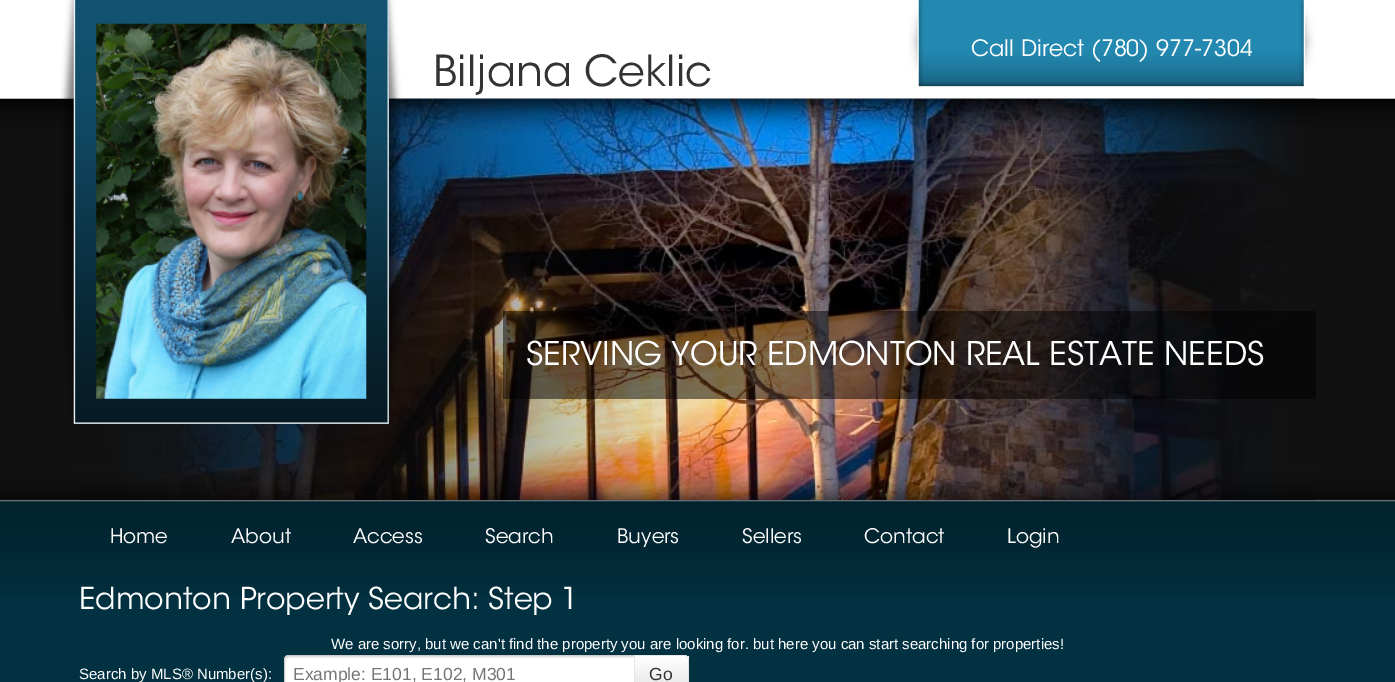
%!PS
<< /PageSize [1395 682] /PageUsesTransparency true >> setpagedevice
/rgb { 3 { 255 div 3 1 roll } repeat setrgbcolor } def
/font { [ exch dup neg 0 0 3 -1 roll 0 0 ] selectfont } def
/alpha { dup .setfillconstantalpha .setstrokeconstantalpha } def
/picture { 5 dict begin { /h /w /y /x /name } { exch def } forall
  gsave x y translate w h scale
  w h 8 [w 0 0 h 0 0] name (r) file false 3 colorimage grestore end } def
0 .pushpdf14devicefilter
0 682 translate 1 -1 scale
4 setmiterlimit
2 49 65 rgb
0 0 1395 682 rectfill
(img/1.rgb) 0 0 1395 598 picture
(img/2.rgb) 78 98 1239 402 picture
(img/3.rgb) 60 0 343 424 picture
18 81 111 rgb
74 0 315 424 rectfill
(img/4.rgb) 73 0 316 424 picture
(img/5.rgb) 96 23 271 376 picture
35 137 177 rgb
918 0 386 86 rectfill
(img/6.rgb) 908 0 408 87 picture
0.5 alpha
0 0 0 rgb
503 311 813 88 rectfill
1 alpha
255 255 255 rgb
289 655 moveto 639 655 lineto 639 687 lineto 289 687 lineto 286 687 284 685 284 682 curveto 284 660 lineto 284 657 286 655 289 655 curveto closepath fill
236 236 236 rgb
289 658 moveto 638 658 lineto 638 656 lineto 289 656 lineto 286 656 285 658 285 661 curveto 285 659 287 658 289 658 curveto closepath fill
204 204 204 rgb
289 655.5 moveto 638.5 655.5 lineto 638.5 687.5 lineto 289 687.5 lineto 286.5 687.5 284.5 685.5 284.5 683 curveto 284.5 660 lineto 284.5 657.5 286.5 655.5 289 655.5 curveto closepath stroke
gsave
634 655 moveto 684 655 lineto 687 655 689 657 689 660 curveto 689 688 lineto 689 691 687 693 684 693 curveto 634 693 lineto closepath clip newpath
gsave 635 656 moveto 689 656 lineto 689 682 lineto 635 682 lineto closepath clip newpath
<< /ShadingType 2 /ColorSpace /DeviceRGB /Coords [661 656 661 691] /Extend [true true] /Function << /FunctionType 2 /Domain [0 1] /C0 [1 1 1] /C1 [0.902 0.902 0.902] /N 1 >> >> shfill grestore
grestore
230 230 230 rgb
634 655 moveto 635 656 lineto 684 656 lineto 685 656 686 656 687 657 curveto 687 656 lineto 687 655 685 655 684 655 curveto closepath fill
689 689 moveto 687.5 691 lineto 686.5 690.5 lineto 687.5 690 688 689 688 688 curveto 688 660 lineto 688 659 687.5 658 686.5 657 curveto 687.5 656.5 lineto 689 658.5 lineto closepath 634 655 moveto 634 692 lineto 635 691 lineto 635 656 lineto closepath fill
/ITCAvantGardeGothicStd-Light 22.5 font
255 255 255 rgb
971 56 moveto (Call Direct \(780\) 977-7304) show
/ITCAvantGardeGothicStd-Light 42.5 font
51 51 51 rgb
433 86 moveto (Biljana Ceklic) show
/ITCAvantGardeGothicStd-Light 32.5 font
255 255 255 rgb
526 365 moveto (SERVING YOUR EDMONTON REAL ESTATE NEEDS) show
/ITCAvantGardeGothicStd-Light 20 font
[
  [(Home) 110 543]
  [(About) 231 543]
  [(Access) 353 543]
  [(Search) 485 543]
  [(Buyers) 617 543]
  [(Sellers) 742 543]
  [(Contact) 864 543]
  [(Login) 1007 543]
] { aload pop moveto show } forall
/ITCAvantGardeGothicStd-Light 30 font
79 609 moveto (Edmonton Property Search: Step 1) show
/LiberationSans-Regular 15 font
331 649 moveto (We are sorry, but we can't find the property you are looking for. but here you can start searching for properties!) show
79 679 moveto (Search by MLS® Number\(s\):) show
/LiberationSans-Regular 17.5 font
117 117 117 rgb
293 680 moveto (Example: E101, E102, M301) show
51 51 51 rgb
649 680 moveto (Go) show
.poppdf14devicefilter showpage
